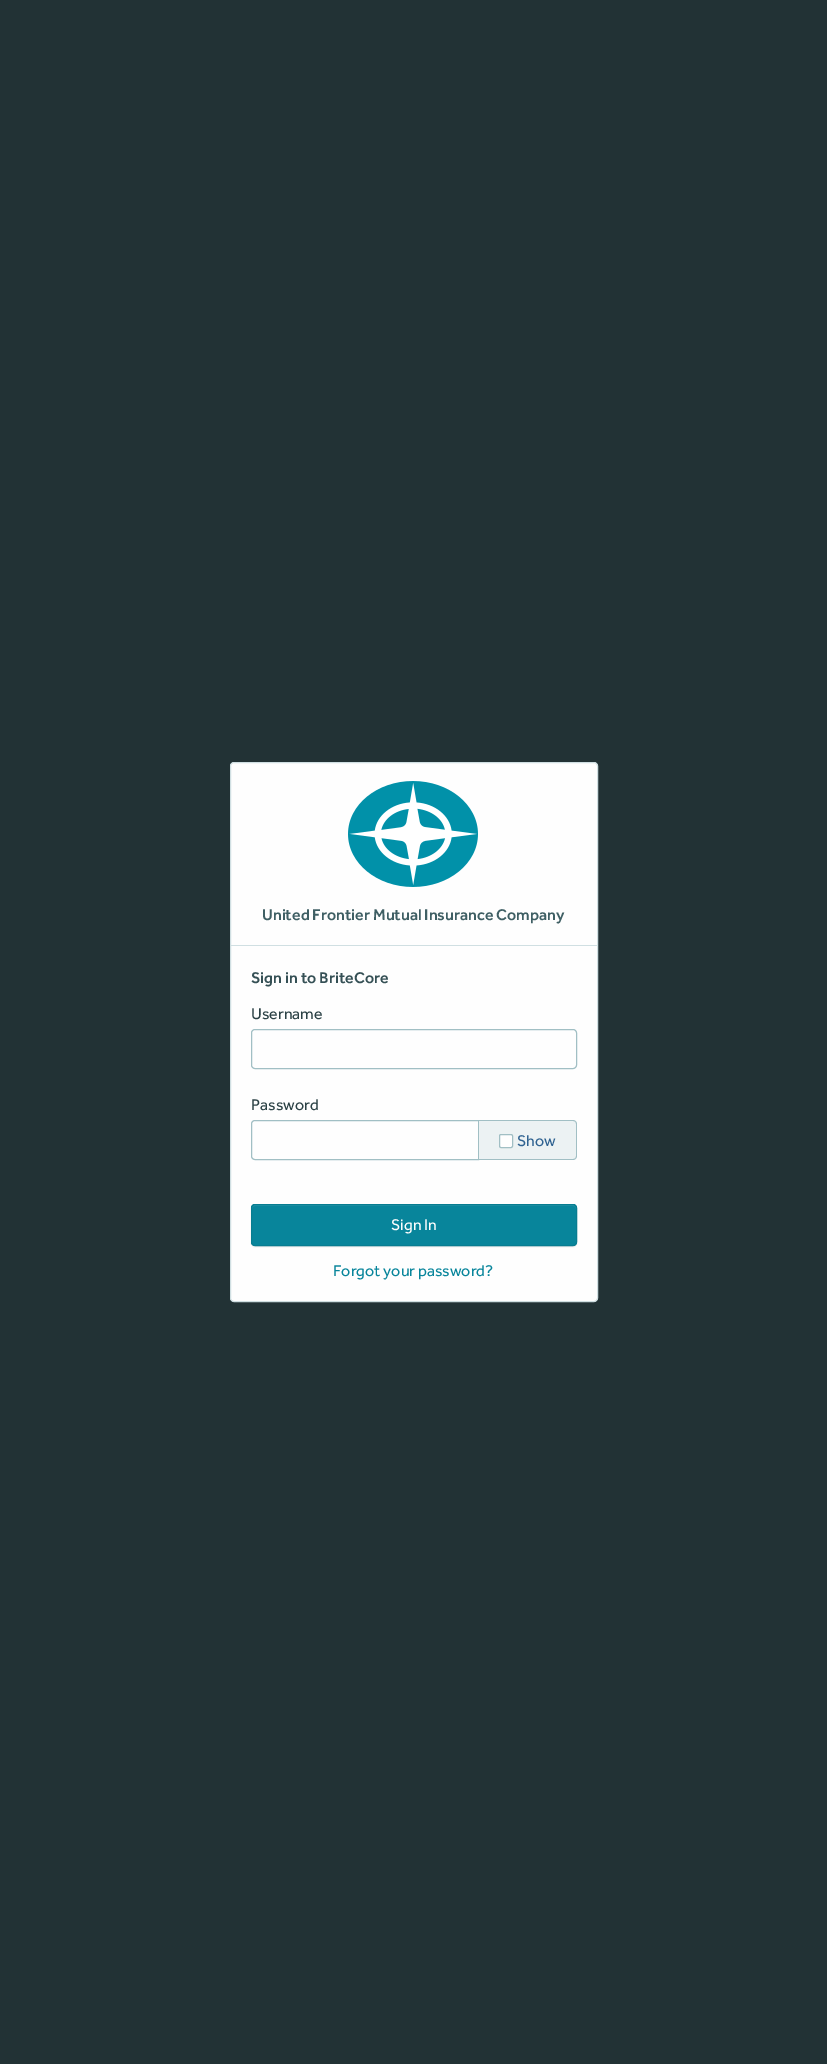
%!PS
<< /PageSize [827 2064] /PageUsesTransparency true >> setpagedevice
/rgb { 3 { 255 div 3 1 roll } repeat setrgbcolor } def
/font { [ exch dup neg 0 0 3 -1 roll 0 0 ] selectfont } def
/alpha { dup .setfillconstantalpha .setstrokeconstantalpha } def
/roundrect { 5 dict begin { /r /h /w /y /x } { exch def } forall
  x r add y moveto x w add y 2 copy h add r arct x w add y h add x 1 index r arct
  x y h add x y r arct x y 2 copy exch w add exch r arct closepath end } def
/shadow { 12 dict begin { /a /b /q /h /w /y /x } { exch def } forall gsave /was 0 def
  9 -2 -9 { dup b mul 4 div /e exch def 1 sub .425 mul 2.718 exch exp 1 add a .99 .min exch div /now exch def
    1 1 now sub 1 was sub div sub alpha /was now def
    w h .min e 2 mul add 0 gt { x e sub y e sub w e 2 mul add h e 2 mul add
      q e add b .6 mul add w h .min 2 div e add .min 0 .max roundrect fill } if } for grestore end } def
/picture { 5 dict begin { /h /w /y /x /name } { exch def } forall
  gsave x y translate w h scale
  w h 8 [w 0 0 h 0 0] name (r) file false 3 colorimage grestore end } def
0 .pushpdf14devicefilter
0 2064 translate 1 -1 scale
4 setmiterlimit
34 50 53 rgb
0 0 827 2064 rectfill
254 254 254 rgb
230.5 762.5 367 539 3.5 roundrect gsave fill grestore
208 223 226 rgb
stroke
231 945 366 1 rectfill
(img/1.rgb) 348 781 130 106 picture
161 191 196 rgb
251.5 1029.5 325 39 3.5 roundrect stroke
255 1120.5 moveto 478.5 1120.5 lineto 478.5 1159.5 lineto 255 1159.5 lineto 253 1159.5 251.5 1158 251.5 1156 curveto 251.5 1124 lineto 251.5 1122 253 1120.5 255 1120.5 curveto closepath stroke
236 242 243 rgb
479 1120 moveto 573 1120 lineto 575 1120 577 1122 577 1124 curveto 577 1156 lineto 577 1158 575 1160 573 1160 curveto 479 1160 lineto closepath fill
161 191 196 rgb
479 1120 moveto 573 1120 lineto 575 1120 577 1122 577 1124 curveto 577 1156 lineto 577 1158 575 1160 573 1160 curveto 479 1160 lineto closepath 479 1121 moveto 573 1121 lineto 575 1121 576 1122 576 1124 curveto 576 1156 lineto 576 1158 575 1159 573 1159 curveto 479 1159 lineto closepath eofill
254 254 254 rgb
499.5 1134.5 13 13 1.5 roundrect gsave fill grestore
161 191 196 rgb
stroke
0 0 0 rgb
251 1205 326 42 4 0.5 0.1 shadow
8 133 155 rgb
251 1204 326 42 4 roundrect fill
33 145 165 rgb
255 1206 moveto 573 1206 lineto 575 1206 576 1207 576 1209 curveto 576 1207 575 1205 573 1205 curveto 255 1205 lineto 253 1205 252 1207 252 1209 curveto 252 1207 253 1206 255 1206 curveto closepath fill
8 125 145 rgb
251.5 1204.5 325 41 3.5 roundrect stroke
/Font-Medium 16 font
63 95 100 rgb
262 920 moveto (United Frontier Mutual Insurance Company) show
53 80 85 rgb
251 983 moveto (Sign in to BriteCore) show
/Font-Regular 16 font
43 65 69 rgb
251 1019 moveto (Username) show
251 1110 moveto (Password) show
48 99 145 rgb
517 1146 moveto (Show) show
254 254 254 rgb
391 1230 moveto (Sign In) show
8 133 155 rgb
333 1276 moveto (Forgot your password?) show
.poppdf14devicefilter showpage
